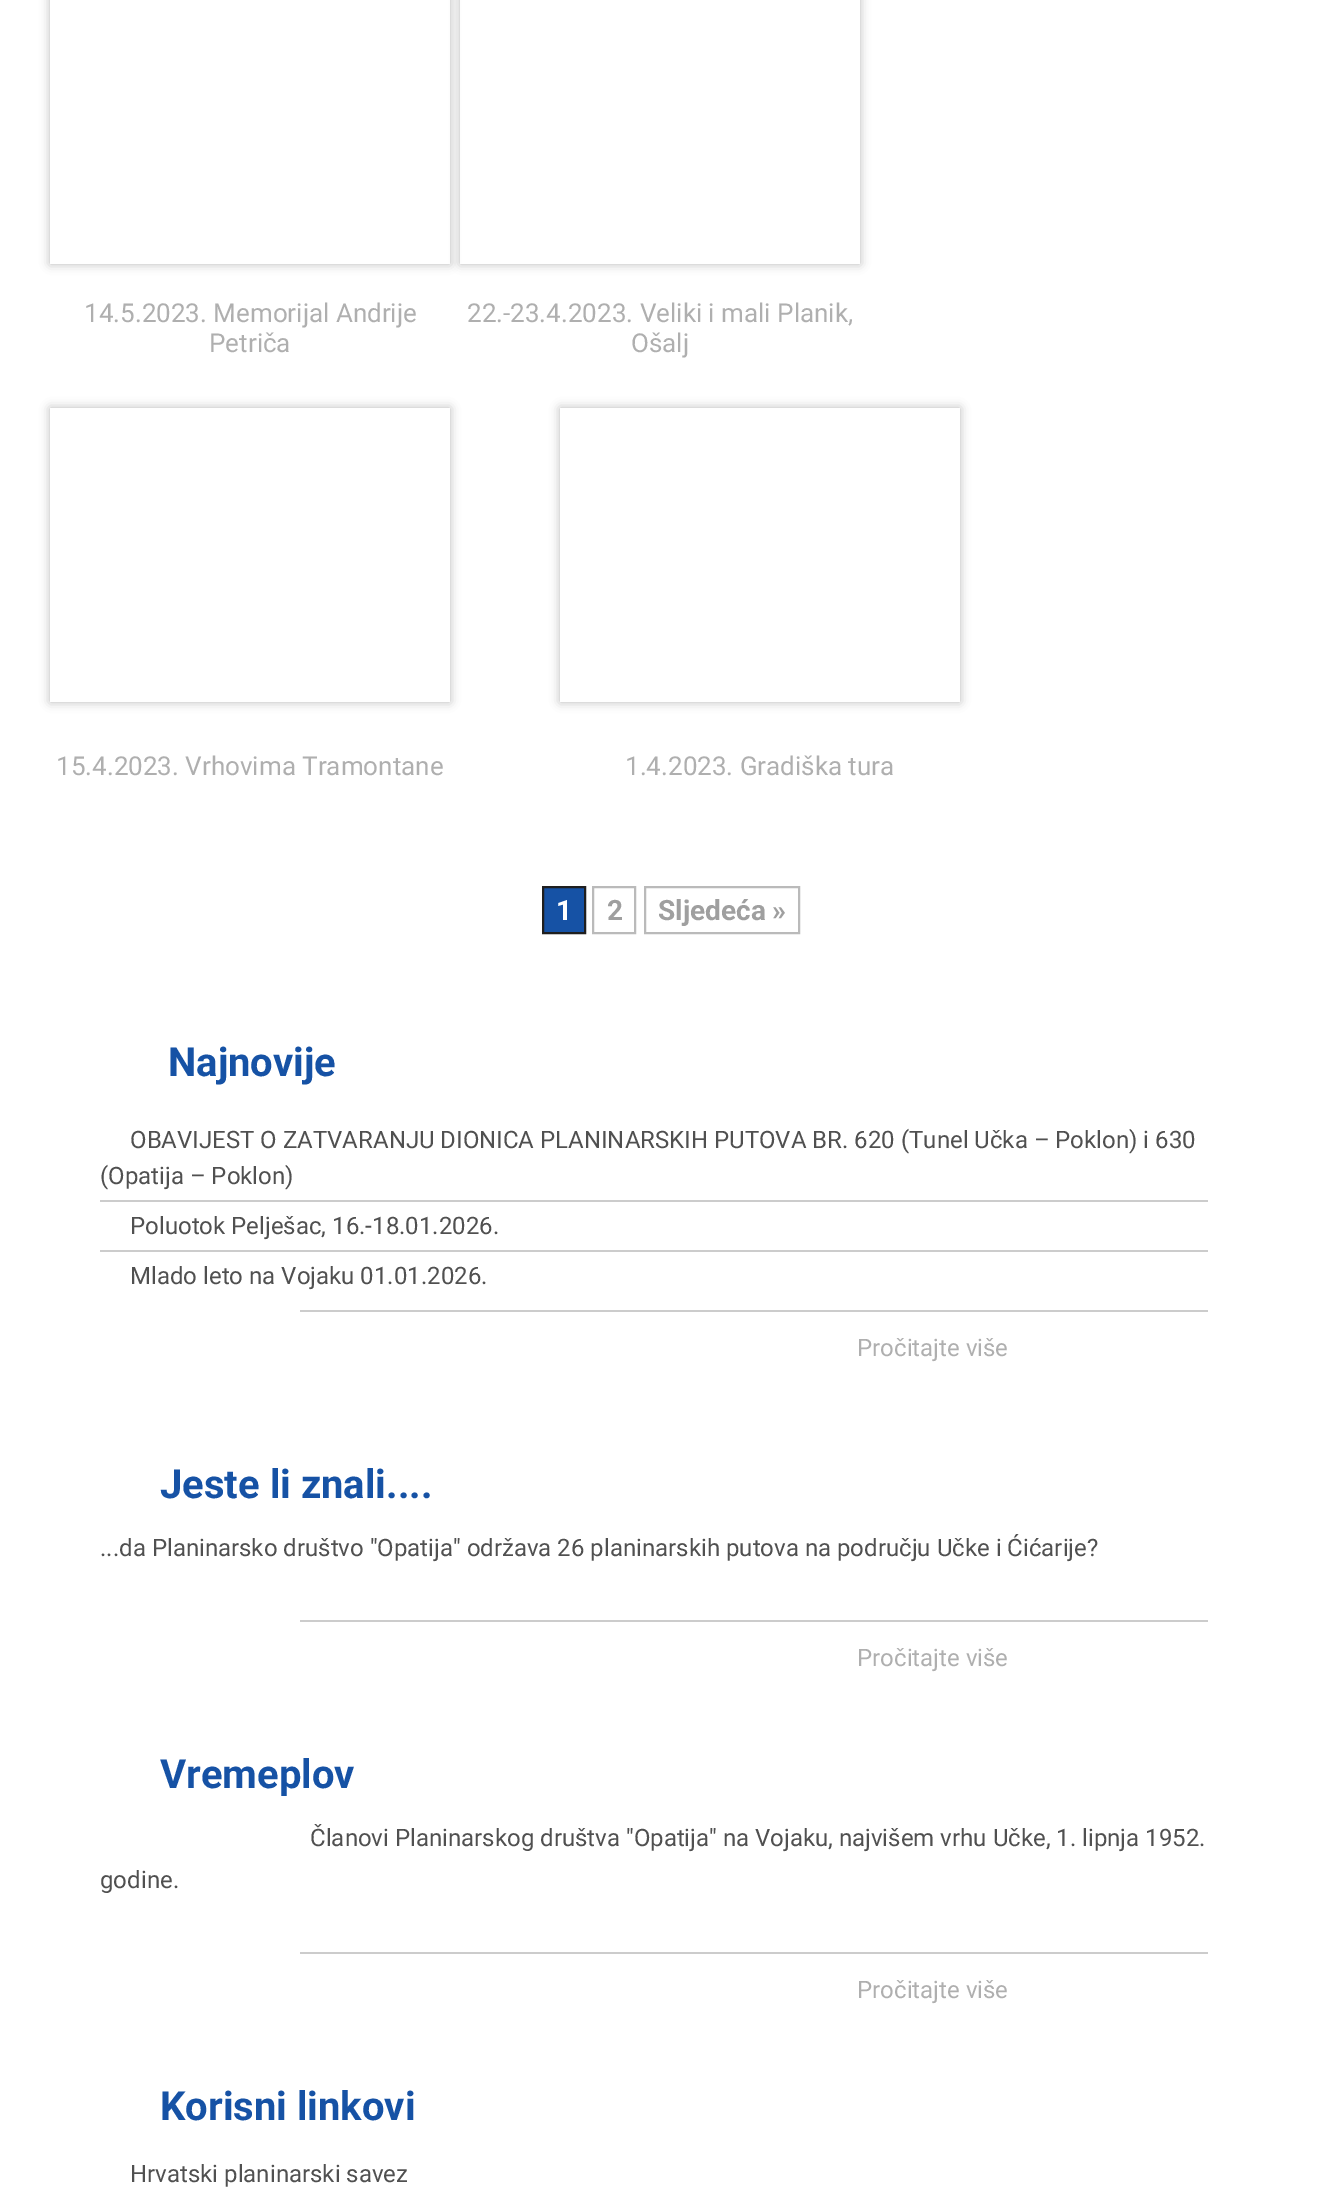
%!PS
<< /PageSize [1341 2195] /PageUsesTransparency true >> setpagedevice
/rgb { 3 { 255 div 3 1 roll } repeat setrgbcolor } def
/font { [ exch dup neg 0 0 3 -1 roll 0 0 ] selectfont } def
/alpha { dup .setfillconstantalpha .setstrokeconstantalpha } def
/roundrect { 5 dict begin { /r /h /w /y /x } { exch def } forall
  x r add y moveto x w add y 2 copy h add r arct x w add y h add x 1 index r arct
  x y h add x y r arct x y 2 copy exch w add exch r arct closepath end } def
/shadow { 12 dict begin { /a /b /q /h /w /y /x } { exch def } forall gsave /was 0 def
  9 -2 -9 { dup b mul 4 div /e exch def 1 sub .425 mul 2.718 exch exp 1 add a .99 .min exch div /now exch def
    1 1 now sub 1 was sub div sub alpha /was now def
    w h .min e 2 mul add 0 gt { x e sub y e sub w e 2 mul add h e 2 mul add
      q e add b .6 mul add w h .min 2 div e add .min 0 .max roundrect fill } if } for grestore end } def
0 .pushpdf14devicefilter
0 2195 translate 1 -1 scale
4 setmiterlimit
255 255 255 rgb
0 0 1341 2195 rectfill
gsave
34 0 moveto 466 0 lineto 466 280 lineto 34 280 lineto closepath 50 -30 moveto 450 -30 lineto 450 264 lineto 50 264 lineto closepath eoclip newpath
186 186 186 rgb
50 -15 400 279 0 5 1 shadow
grestore
gsave
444 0 moveto 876 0 lineto 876 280 lineto 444 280 lineto closepath 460 -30 moveto 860 -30 lineto 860 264 lineto 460 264 lineto closepath eoclip newpath
186 186 186 rgb
460 -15 400 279 0 5 1 shadow
grestore
gsave
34 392 moveto 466 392 lineto 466 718 lineto 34 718 lineto closepath 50 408 moveto 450 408 lineto 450 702 lineto 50 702 lineto closepath eoclip newpath
186 186 186 rgb
50 408 400 294 0 5 1 shadow
grestore
gsave
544 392 moveto 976 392 lineto 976 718 lineto 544 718 lineto closepath 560 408 moveto 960 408 lineto 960 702 lineto 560 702 lineto closepath eoclip newpath
186 186 186 rgb
560 408 400 294 0 5 1 shadow
grestore
22 82 165 rgb
543 887 moveto 585 887 lineto 585 933 lineto 543 933 lineto closepath gsave fill grestore
31 31 31 rgb
2 setlinewidth
stroke
186 186 186 rgb
593 887 42 46 rectstroke
645 887 154 46 rectstroke
[
  [100 1200 1108 2 204 204 204]
  [100 1250 1108 2 204 204 204]
  [300 1310 908 2 204 204 204]
  [300 1620 908 2 204 204 204]
  [300 1952 908 2 204 204 204]
] { aload pop rgb rectfill } forall
/Roboto-Regular 26 font
175 175 175 rgb
[
  [(14.5.2023. Memorijal Andrije) 84 322]
  [(Petriča) 209 352]
  [(22.-23.4.2023. Veliki i mali Planik,) 467 322]
  [(Ošalj) 631 352]
  [(15.4.2023. Vrhovima Tramontane) 56 775]
  [(1.4.2023. Gradiška tura) 625 775]
] { aload pop moveto show } forall
/Roboto-Bold 28 font
255 255 255 rgb
556 920 moveto (1) show
159 159 159 rgb
607 920 moveto (2) show
658 920 moveto (Sljedeća ») show
/Roboto-Bold 40 font
22 82 165 rgb
168 1076 moveto (Najnovije) show
/Roboto-Regular 24 font
80 80 80 rgb
[
  [(OBAVIJEST O ZATVARANJU DIONICA PLANINARSKIH PUTOVA BR. 620 \(Tunel Učka – Poklon\) i 630) 130 1148]
  [(\(Opatija – Poklon\)) 100 1184]
  [(Poluotok Pelješac, 16.-18.01.2026.) 130 1234]
  [(Mlado leto na Vojaku 01.01.2026.) 130 1284]
] { aload pop moveto show } forall
175 175 175 rgb
857 1356 moveto (Pročitajte više) show
/Roboto-Bold 40 font
22 82 165 rgb
160 1498 moveto (Jeste li znali....) show
/Roboto-Regular 24 font
80 80 80 rgb
100 1556 moveto (...da Planinarsko društvo "Opatija" održava 26 planinarskih putova na području Učke i Ćićarije?) show
175 175 175 rgb
857 1666 moveto (Pročitajte više) show
/Roboto-Bold 40 font
22 82 165 rgb
160 1788 moveto (Vremeplov) show
/Roboto-Regular 24 font
80 80 80 rgb
310 1846 moveto (Članovi Planinarskog društva "Opatija" na Vojaku, najvišem vrhu Učke, 1. lipnja 1952.) show
100 1888 moveto (godine.) show
175 175 175 rgb
857 1998 moveto (Pročitajte više) show
/Roboto-Bold 40 font
22 82 165 rgb
160 2120 moveto (Korisni linkovi) show
/Roboto-Regular 24 font
80 80 80 rgb
130 2182 moveto (Hrvatski planinarski savez) show
.poppdf14devicefilter showpage
